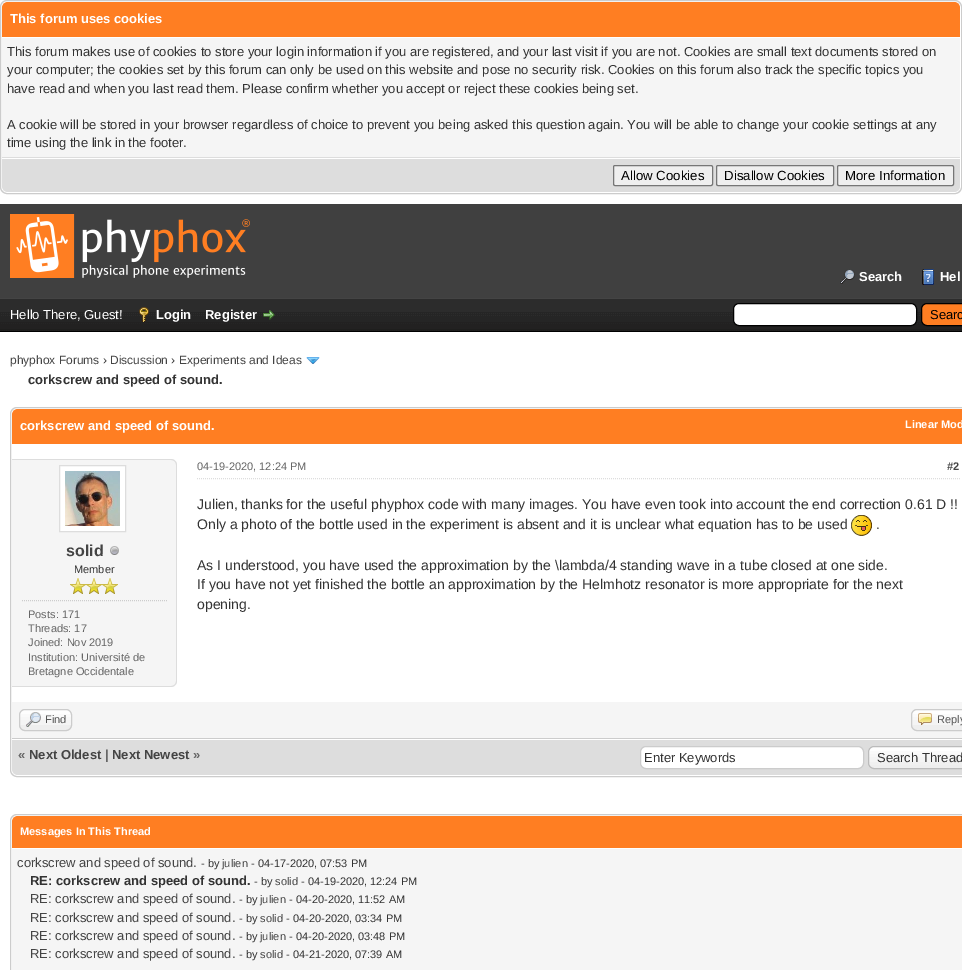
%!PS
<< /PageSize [962 970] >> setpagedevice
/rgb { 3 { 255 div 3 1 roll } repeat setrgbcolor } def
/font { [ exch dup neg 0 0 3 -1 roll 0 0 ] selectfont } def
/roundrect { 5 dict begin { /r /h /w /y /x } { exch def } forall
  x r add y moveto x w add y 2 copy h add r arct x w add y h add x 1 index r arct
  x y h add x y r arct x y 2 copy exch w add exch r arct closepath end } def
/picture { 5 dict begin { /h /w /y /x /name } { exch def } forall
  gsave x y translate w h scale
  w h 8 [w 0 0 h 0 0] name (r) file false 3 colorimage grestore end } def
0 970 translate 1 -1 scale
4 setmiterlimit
255 255 255 rgb
0 0 962 970 rectfill
204 204 204 rgb
0.5 0.5 961 193 6.5 roundrect stroke
255 126 34 rgb
8 2 moveto 954 2 lineto 957.5 2 960 4.5 960 8 curveto 960 37 lineto 2 37 lineto 2 8 lineto 2 4.5 4.5 2 8 2 curveto closepath fill
245 245 245 rgb
2 38 958 119 rectfill
221 221 221 rgb
2 157 958 1 rectfill
2 158 moveto 960 158 lineto 960 186 lineto 960 189.5 957.5 192 954 192 curveto 8 192 lineto 4.5 192 2 189.5 2 186 curveto closepath fill
255 255 255 rgb
2 158 958 1 rectfill
239 239 239 rgb
613.5 165.5 99 20 1.5 roundrect gsave fill grestore
118 118 118 rgb
stroke
239 239 239 rgb
716.5 165.5 117 20 1.5 roundrect gsave fill grestore
118 118 118 rgb
stroke
239 239 239 rgb
837.5 165.5 116 20 1.5 roundrect gsave fill grestore
118 118 118 rgb
stroke
64 64 64 rgb
0 204 962 94 rectfill
(img/1.rgb) 10 214 240 64 picture
(img/2.rgb) 840 269 15 15 picture
(img/3.rgb) 922 269 12 16 picture
(img/4.rgb) 0 299 962 32 picture
68 68 68 rgb
0 298 962 1 rectfill
0 0 0 rgb
0 331 962 1 rectfill
(img/5.rgb) 139 307 10 15 picture
(img/6.rgb) 263 310 12 10 picture
255 255 255 rgb
733.5 303.5 183 22 5.5 roundrect gsave fill grestore
0 0 0 rgb
stroke
255 126 34 rgb
921.5 303.5 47 22 5.5 roundrect gsave fill grestore
0 0 0 rgb
stroke
(img/7.rgb) 306 357 14 7 picture
204 204 204 rgb
10.5 407.5 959 369 6.5 roundrect stroke
255 126 34 rgb
18 409 moveto 962 409 lineto 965.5 409 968 411.5 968 415 curveto 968 444 lineto 12 444 lineto 12 415 lineto 12 411.5 14.5 409 18 409 curveto closepath fill
245 245 245 rgb
12 459 moveto 171 459 lineto 174.5 459 177 461.5 177 465 curveto 177 681 lineto 177 684.5 174.5 687 171 687 curveto 12 687 lineto closepath fill
221 221 221 rgb
12 459 moveto 171 459 lineto 174 459 177 462 177 465 curveto 177 681 lineto 177 684 174 687 171 687 curveto 12 687 lineto closepath 12 460 moveto 171 460 lineto 174 460 176 462 176 465 curveto 176 681 lineto 176 684 174 686 171 686 curveto 12 686 lineto closepath eofill
255 255 255 rgb
59.5 465.5 moveto 125.5 465.5 lineto 125.5 531.5 lineto 59.5 531.5 lineto closepath gsave fill grestore
221 221 221 rgb
stroke
(img/8.rgb) 65 471 55 55 picture
(img/9.rgb) 110 546 9 9 picture
(img/10.rgb) 70 578 16 16 picture
(img/10.rgb) 86 578 16 16 picture
(img/10.rgb) 102 578 16 16 picture
204 204 204 rgb
[1 1] 0 setdash
22 600.5 moveto 167 600.5 lineto stroke
221 221 221 rgb
197 478.5 moveto 960 478.5 lineto stroke
(img/11.rgb) 851 515 21 21 picture
245 245 245 rgb
12 702 950 36 rectfill
204 204 204 rgb
12 738 950 1 rectfill
238 238 238 rgb
19 709 53 22 6 roundrect fill
(img/12.rgb) 19 710 53 15 picture
204 204 204 rgb
[] 0 setdash
19.5 709.5 52 21 5.5 roundrect stroke
(img/13.rgb) 26 712 15 15 picture
238 238 238 rgb
911 709 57 22 6 roundrect fill
(img/14.rgb) 911 710 51 15 picture
204 204 204 rgb
911.5 709.5 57 21 5.5 roundrect stroke
(img/15.rgb) 918 713 14 12 picture
221 221 221 rgb
12 739 moveto 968 739 lineto 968 769 lineto 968 772.5 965.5 775 962 775 curveto 18 775 lineto 14.5 775 12 772.5 12 769 curveto closepath fill
255 255 255 rgb
12 739 950 1 rectfill
640.5 746.5 223 22 5.5 roundrect gsave fill grestore
204 204 204 rgb
stroke
238 238 238 rgb
868 746 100 23 6 roundrect fill
(img/16.rgb) 868 747 94 18 picture
187 187 187 rgb
868.5 746.5 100 22 5.5 roundrect stroke
204 204 204 rgb
10.5 814.5 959 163 6.5 roundrect stroke
255 126 34 rgb
18 816 moveto 962 816 lineto 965.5 816 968 818.5 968 822 curveto 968 848 lineto 12 848 lineto 12 822 lineto 12 818.5 14.5 816 18 816 curveto closepath fill
245 245 245 rgb
12 849 950 121 rectfill
/LiberationSans-Bold 13 font
255 255 255 rgb
10 23 moveto (This forum uses cookies) show
/LiberationSans-Regular 13 font
51 51 51 rgb
[
  [(This forum makes use of cookies to store your login information if you are registered, and your last visit if you are not. Cookies are small text documents stored on) 7 56]
  [(your computer; the cookies set by this forum can only be used on this website and pose no security risk. Cookies on this forum also track the specific topics you) 7 74]
  [(have read and when you last read them. Please confirm whether you accept or reject these cookies being set.) 7 93]
  [(A cookie will be stored in your browser regardless of choice to prevent you being asked this question again. You will be able to change your cookie settings at any) 7 129]
  [(time using the link in the footer.) 7 147]
] { aload pop moveto show } forall
/LiberationSans-Regular 13.25 font
0 0 0 rgb
[
  [(Allow Cookies) 621 180]
  [(Disallow Cookies) 724 180]
  [(More Information) 845 180]
] { aload pop moveto show } forall
/LiberationSans-Bold 13 font
255 255 255 rgb
859 281 moveto (Search) show
940 281 moveto (Hel) show
/LiberationSans-Regular 13 font
10 319 moveto (Hello There, Guest!) show
/LiberationSans-Bold 13 font
156 319 moveto (Login) show
205 319 moveto (Register) show
/LiberationSans-Regular 13 font
0 0 0 rgb
930 319 moveto (Searc) show
/LiberationSans-Regular 12 font
68 68 68 rgb
10 364 moveto (phyphox Forums) show
51 51 51 rgb
103 364 moveto (›) show
68 68 68 rgb
110 364 moveto (Discussion) show
51 51 51 rgb
171 364 moveto (›) show
68 68 68 rgb
179 364 moveto (Experiments and Ideas) show
/LiberationSans-Bold 13 font
51 51 51 rgb
28 384 moveto (corkscrew and speed of sound.) show
255 255 255 rgb
20 430 moveto (corkscrew and speed of sound.) show
/LiberationSans-Bold 11 font
905 428 moveto (Linear Mod) show
/LiberationSans-Bold 16 font
68 68 68 rgb
66 556 moveto (solid) show
/LiberationSans-Regular 11 font
51 51 51 rgb
74 573 moveto (Member) show
102 102 102 rgb
[
  [(Posts: 171) 28 618]
  [(Threads: 17) 28 632]
  [(Joined: Nov 2019) 28 646]
  [(Institution: Université de) 28 661]
  [(Bretagne Occidentale) 28 675]
  [(04-19-2020, 12:24 PM) 197 470]
] { aload pop moveto show } forall
/LiberationSans-Bold 11 font
68 68 68 rgb
947 470 moveto (#2) show
/LiberationSans-Regular 14 font
51 51 51 rgb
[
  [(Julien, thanks for the useful phyphox code with many images. You have even took into account the end correction 0.61 D !!) 197 509]
  [(Only a photo of the bottle used in the experiment is absent and it is unclear what equation has to be used) 197 529]
  [(.) 876 529]
  [(As I understood, you have used the approximation by the \\lambda/4 standing wave in a tube closed at one side.) 197 570]
  [(If you have not yet finished the bottle an approximation by the Helmhotz resonator is more appropriate for the next) 197 589]
  [(opening.) 197 609]
] { aload pop moveto show } forall
/LiberationSans-Regular 11 font
85 85 85 rgb
45 723 moveto (Find) show
937 723 moveto (Reply) show
/LiberationSans-Bold 13 font
102 102 102 rgb
18 759 moveto («) show
68 68 68 rgb
29 759 moveto (Next Oldest) show
102 102 102 rgb
105 759 moveto (|) show
68 68 68 rgb
112 759 moveto (Next Newest) show
102 102 102 rgb
193 759 moveto (») show
/LiberationSans-Regular 13 font
51 51 51 rgb
644 762 moveto (Enter Keywords) show
877 762 moveto (Search Thread) show
/LiberationSans-Bold 11 font
255 255 255 rgb
20 835 moveto (Messages In This Thread) show
/LiberationSans-Regular 13 font
68 68 68 rgb
17 867 moveto (corkscrew and speed of sound.) show
/LiberationSans-Regular 11 font
51 51 51 rgb
201 867 moveto (- by) show
68 68 68 rgb
222 867 moveto (julien) show
51 51 51 rgb
251 867 moveto (- 04-17-2020, 07:53 PM) show
/LiberationSans-Bold 13 font
30 885 moveto (RE: corkscrew and speed of sound.) show
/LiberationSans-Regular 11 font
254 885 moveto (- by) show
68 68 68 rgb
275 885 moveto (solid) show
51 51 51 rgb
301 885 moveto (- 04-19-2020, 12:24 PM) show
/LiberationSans-Regular 13 font
68 68 68 rgb
30 903 moveto (RE: corkscrew and speed of sound.) show
/LiberationSans-Regular 11 font
51 51 51 rgb
239 903 moveto (- by) show
68 68 68 rgb
260 903 moveto (julien) show
51 51 51 rgb
289 903 moveto (- 04-20-2020, 11:52 AM) show
/LiberationSans-Regular 13 font
68 68 68 rgb
30 922 moveto (RE: corkscrew and speed of sound.) show
/LiberationSans-Regular 11 font
51 51 51 rgb
239 922 moveto (- by) show
68 68 68 rgb
260 922 moveto (solid) show
51 51 51 rgb
286 922 moveto (- 04-20-2020, 03:34 PM) show
/LiberationSans-Regular 13 font
68 68 68 rgb
30 940 moveto (RE: corkscrew and speed of sound.) show
/LiberationSans-Regular 11 font
51 51 51 rgb
239 940 moveto (- by) show
68 68 68 rgb
260 940 moveto (julien) show
51 51 51 rgb
289 940 moveto (- 04-20-2020, 03:48 PM) show
/LiberationSans-Regular 13 font
68 68 68 rgb
30 958 moveto (RE: corkscrew and speed of sound.) show
/LiberationSans-Regular 11 font
51 51 51 rgb
239 958 moveto (- by) show
68 68 68 rgb
260 958 moveto (solid) show
51 51 51 rgb
286 958 moveto (- 04-21-2020, 07:39 AM) show
showpage
